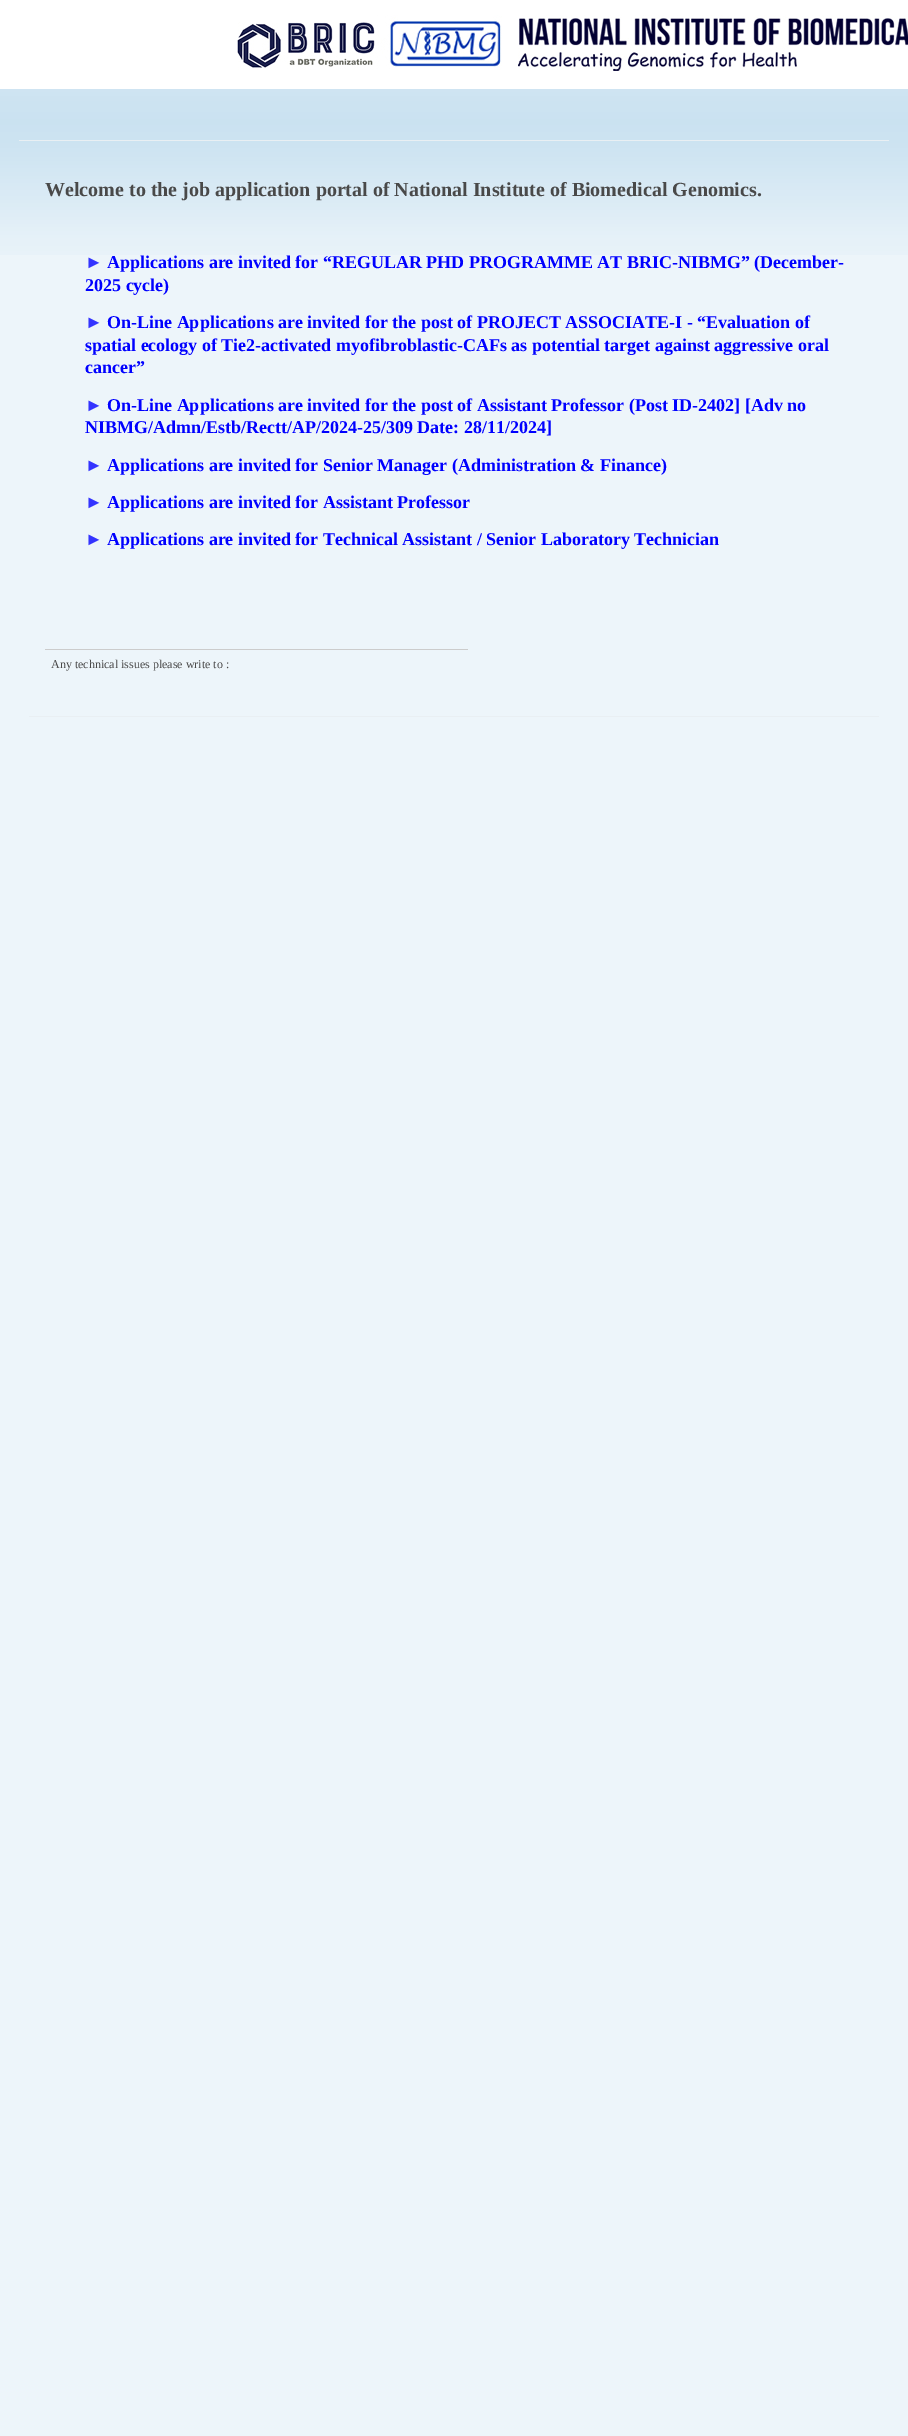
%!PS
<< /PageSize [908 2436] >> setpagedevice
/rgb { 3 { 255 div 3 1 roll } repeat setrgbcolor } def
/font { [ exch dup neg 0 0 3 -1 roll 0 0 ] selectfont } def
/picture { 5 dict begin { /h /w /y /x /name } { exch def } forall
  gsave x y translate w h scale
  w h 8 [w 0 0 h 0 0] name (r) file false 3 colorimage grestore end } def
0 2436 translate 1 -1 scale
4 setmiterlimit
237 245 250 rgb
0 0 908 2436 rectfill
(img/1.rgb) 0 0 908 255 picture
(img/2.rgb) 237 15 671 56 picture
[
  [19 140 870 1 233 239 243]
  [29 716 850 1 233 239 243]
  [45 649 423 1 204 204 204]
] { aload pop rgb rectfill } forall
/LiberationSerif-Bold 20 font
73 73 73 rgb
45 196 moveto (Welcome to the job application portal of National Institute of Biomedical Genomics.) show
/LiberationSerif-Bold 18 font
51 51 255 rgb
85 268 moveto (►) show
0 0 255 rgb
107 268 moveto (Applications are invited for “REGULAR PHD PROGRAMME AT BRIC-NIBMG” \(December-) show
85 291 moveto (2025 cycle\)) show
51 51 255 rgb
85 328 moveto (►) show
0 0 255 rgb
[
  [(On-Line Applications are invited for the post of PROJECT ASSOCIATE-I - “Evaluation of) 107 328]
  [(spatial ecology of Tie2-activated myofibroblastic-CAFs as potential target against aggressive oral) 85 351]
  [(cancer”) 85 373]
] { aload pop moveto show } forall
51 51 255 rgb
85 411 moveto (►) show
0 0 255 rgb
107 411 moveto (On-Line Applications are invited for the post of Assistant Professor \(Post ID-2402] [Adv no) show
85 433 moveto (NIBMG/Admn/Estb/Rectt/AP/2024-25/309 Date: 28/11/2024]) show
51 51 255 rgb
85 471 moveto (►) show
0 0 255 rgb
107 471 moveto (Applications are invited for Senior Manager \(Administration & Finance\)) show
51 51 255 rgb
85 508 moveto (►) show
0 0 255 rgb
107 508 moveto (Applications are invited for Assistant Professor) show
51 51 255 rgb
85 545 moveto (►) show
0 0 255 rgb
107 545 moveto (Applications are invited for Technical Assistant / Senior Laboratory Technician) show
/LiberationSerif-Regular 12 font
73 73 73 rgb
51 668 moveto (Any technical issues please write to :) show
showpage
